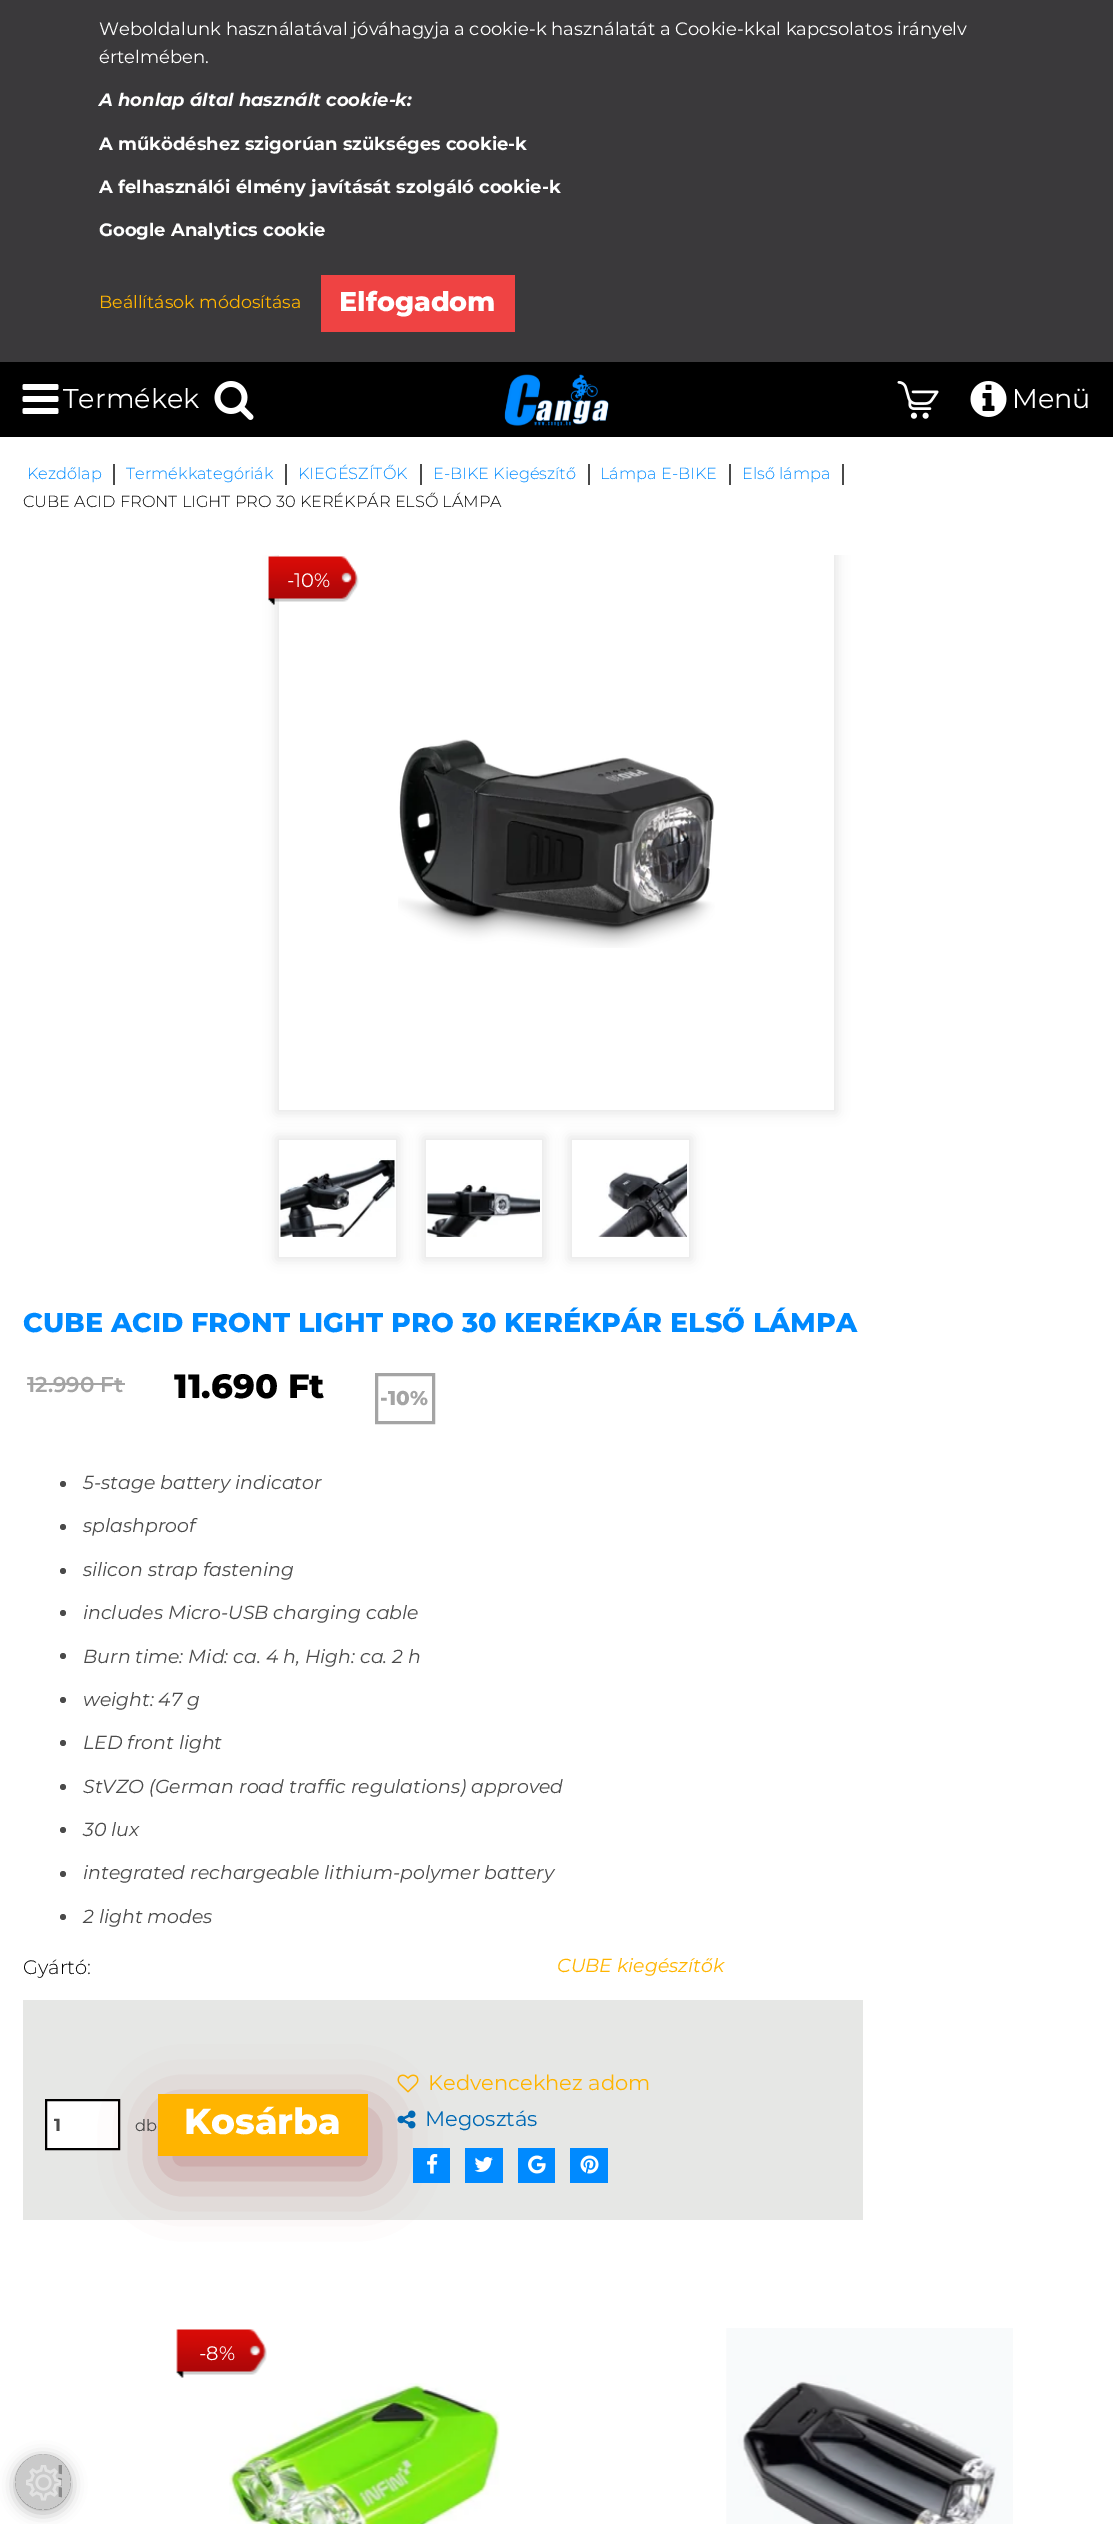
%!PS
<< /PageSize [1113 2524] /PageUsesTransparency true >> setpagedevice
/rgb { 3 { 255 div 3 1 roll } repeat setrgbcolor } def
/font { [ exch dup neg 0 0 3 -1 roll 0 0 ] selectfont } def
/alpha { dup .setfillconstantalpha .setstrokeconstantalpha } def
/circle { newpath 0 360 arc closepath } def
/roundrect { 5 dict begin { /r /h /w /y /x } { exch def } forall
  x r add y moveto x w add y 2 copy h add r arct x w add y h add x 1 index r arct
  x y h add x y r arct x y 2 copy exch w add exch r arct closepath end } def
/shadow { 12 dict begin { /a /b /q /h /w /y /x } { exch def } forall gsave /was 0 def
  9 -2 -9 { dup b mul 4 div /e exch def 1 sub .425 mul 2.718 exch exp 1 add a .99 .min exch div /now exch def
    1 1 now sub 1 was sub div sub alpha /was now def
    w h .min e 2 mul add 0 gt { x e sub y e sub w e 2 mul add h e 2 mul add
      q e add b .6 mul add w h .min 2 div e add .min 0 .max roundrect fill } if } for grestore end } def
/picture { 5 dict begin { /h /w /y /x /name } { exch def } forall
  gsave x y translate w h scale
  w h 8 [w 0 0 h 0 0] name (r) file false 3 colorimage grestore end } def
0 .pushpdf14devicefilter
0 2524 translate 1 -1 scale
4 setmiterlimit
255 255 255 rgb
0 0 1113 2524 rectfill
[
  [0 0 1113 362 58 57 59]
  [321 275 194 57 239 67 67]
  [0 362 1113 75 0 0 0]
] { aload pop rgb rectfill } forall
(img/1.rgb) 22 384 37 30 picture
(img/2.rgb) 214 381 40 39 picture
(img/3.rgb) 504 374 105 52 picture
(img/4.rgb) 897 381 42 38 picture
(img/5.rgb) 970 381 37 36 picture
[
  [113 464 2 21 74 74 74]
  [285 464 2 21 74 74 74]
  [420 464 2 21 74 74 74]
  [588 464 2 21 74 74 74]
  [729 464 2 21 74 74 74]
  [842 464 2 21 74 74 74]
] { aload pop rgb rectfill } forall
gsave
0 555 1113 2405 rectclip
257 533 moveto 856 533 lineto 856 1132 lineto 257 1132 lineto closepath 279 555 moveto 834 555 lineto 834 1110 lineto 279 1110 lineto closepath eoclip newpath
0 0 0 rgb
276 552 561 561 0 6 0.1 shadow
grestore
(img/6.rgb) 268 556 91 49 picture
(img/7.rgb) 398 739 317 209 picture
gsave
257 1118 moveto 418 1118 lineto 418 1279 lineto 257 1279 lineto closepath 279 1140 moveto 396 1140 lineto 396 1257 lineto 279 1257 lineto closepath eoclip newpath
0 0 0 rgb
276 1137 123 123 0 6 0.1 shadow
grestore
(img/8.rgb) 280 1158 115 79 picture
gsave
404 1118 moveto 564 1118 lineto 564 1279 lineto 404 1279 lineto closepath 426 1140 moveto 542 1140 lineto 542 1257 lineto 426 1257 lineto closepath eoclip newpath
0 0 0 rgb
423 1137 122 123 0 6 0.1 shadow
grestore
(img/9.rgb) 427 1183 113 54 picture
gsave
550 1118 moveto 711 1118 lineto 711 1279 lineto 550 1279 lineto closepath 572 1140 moveto 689 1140 lineto 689 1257 lineto 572 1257 lineto closepath eoclip newpath
0 0 0 rgb
569 1137 123 123 0 6 0.1 shadow
grestore
(img/10.rgb) 598 1163 89 74 picture
164 164 164 rgb
27 1383 98 2 rectfill
3 setlinewidth
376.5 1374.5 57 48 rectstroke
74 74 74 rgb
63 1484 3 circle fill
63 1527 3 circle fill
63 1571 3 circle fill
63 1613 3 circle fill
63 1656 3 circle fill
63 1700 3 circle fill
63 1743 3 circle fill
63 1787 3 circle fill
63 1830 3 circle fill
63 1874 3 circle fill
63 1917 3 circle fill
230 231 229 rgb
23 2000 840 220 rectfill
255 255 255 rgb
46 2100 moveto 119 2100 lineto 119 2149 lineto 46 2149 lineto closepath gsave fill grestore
0 0 0 rgb
2 setlinewidth
stroke
(img/11.rgb) 397 2074 22 19 picture
140 24 24 rgb
165 2112 210 62 0 30 0.4 shadow
255 180 0 rgb
158 2094 210 62 rectfill
(img/12.rgb) 397 2110 19 19 picture
0 138 255 rgb
413 2148 37 35 rectfill
(img/13.rgb) 427 2154 11 20 picture
465 2148 38 35 rectfill
(img/14.rgb) 474 2157 19 15 picture
518 2148 37 35 rectfill
(img/15.rgb) 528 2155 18 19 picture
570 2148 38 35 rectfill
(img/16.rgb) 580 2155 19 19 picture
(img/17.rgb) 176 2329 91 49 picture
(img/18.rgb) 229 2383 271 141 picture
(img/19.rgb) 726 2328 287 196 picture
gsave
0 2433 moveto 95 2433 lineto 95 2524 lineto 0 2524 lineto closepath 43 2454 moveto 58.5 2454 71 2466.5 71 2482 curveto 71 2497.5 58.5 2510 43 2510 curveto 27.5 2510 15 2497.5 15 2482 curveto 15 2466.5 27.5 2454 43 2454 curveto closepath eoclip newpath
0 0 0 rgb
15 2457 56 56 28 7.5 0.3 shadow
grestore
0.3 alpha
78 78 78 rgb
43 2482 28 circle fill
1 alpha
(img/20.rgb) 26 2465 36 36 picture
/Montserrat-Regular 18 font
255 255 255 rgb
99 35 moveto (Weboldalunk használatával jóváhagyja a cookie-k használatát a Cookie-kkal kapcsolatos irányelv) show
99 63 moveto (értelmében.) show
/Montserrat-BoldItalic 18 font
99 106 moveto (A honlap által használt cookie-k:) show
/Montserrat-Bold 18 font
[
  [(A működéshez szigorúan szükséges cookie-k) 99 150]
  [(A felhasználói élmény javítását szolgáló cookie-k) 99 193]
  [(Google Analytics cookie) 99 236]
] { aload pop moveto show } forall
/Montserrat-Regular 17.5 font
255 180 0 rgb
99 308 moveto (Beállítások módosítása) show
/Montserrat-ExtraBold 27 font
255 255 255 rgb
339 311 moveto (Elfogadom) show
/Montserrat-Regular 27 font
63 408 moveto (Termékek) show
1012 408 moveto (Menü) show
/Montserrat-Light 16.2 font
0 138 255 rgb
[
  [(Kezdőlap) 27 479]
  [(Termékkategóriák) 126 479]
  [(KIEGÉSZÍTŐK) 298 479]
  [(E-BIKE Kiegészítő) 433 479]
  [(Lámpa E-BIKE) 600 479]
  [(Első lámpa) 742 479]
] { aload pop moveto show } forall
0 0 0 rgb
23 507 moveto (CUBE ACID FRONT LIGHT PRO 30 KERÉKPÁR ELSŐ LÁMPA) show
/Montserrat-Regular 19.5 font
255 255 255 rgb
287 587 moveto (-10%) show
/Montserrat-ExtraBold 27 font
0 138 255 rgb
23 1332 moveto (CUBE ACID FRONT LIGHT PRO 30 KERÉKPÁR ELSŐ LÁMPA) show
/Montserrat-SemiBold 21.5 font
164 164 164 rgb
27 1392 moveto (12.990 Ft) show
/Montserrat-ExtraBold 33.75 font
0 0 0 rgb
174 1398 moveto (11.690 Ft) show
/Montserrat-ExtraBold 20 font
164 164 164 rgb
380 1405 moveto (-10%) show
/Montserrat-Italic 18.9 font
74 74 74 rgb
[
  [(5-stage battery indicator) 83 1489]
  [(splashproof) 83 1532]
  [(silicon strap fastening) 83 1576]
  [(includes Micro-USB charging cable) 83 1619]
  [(Burn time: Mid: ca. 4 h, High: ca. 2 h) 83 1663]
  [(weight: 47 g) 83 1706]
  [(LED front light) 83 1749]
  [(StVZO \(German road traffic regulations\) approved) 83 1793]
  [(30 lux) 83 1836]
  [(integrated rechargeable lithium-polymer battery) 83 1879]
  [(2 light modes) 83 1923]
] { aload pop moveto show } forall
/Montserrat-Light 19.5 font
0 0 0 rgb
23 1974 moveto (Gyártó:) show
/Montserrat-Italic 18.9 font
255 180 0 rgb
557 1972 moveto (CUBE kiegészítők) show
/Montserrat-Bold 17.5 font
74 74 74 rgb
54 2131 moveto (1) show
/Montserrat-Regular 16.2 font
135 2131 moveto (db) show
/Montserrat-ExtraBold 36 font
255 255 255 rgb
184 2134 moveto (Kosárba) show
/Montserrat-Regular 21 font
255 180 0 rgb
428 2090 moveto (Kedvencekhez adom) show
0 105 180 rgb
425 2126 moveto (Megosztás) show
/Montserrat-Regular 19.5 font
255 255 255 rgb
199 2360 moveto (-8%) show
.poppdf14devicefilter showpage
